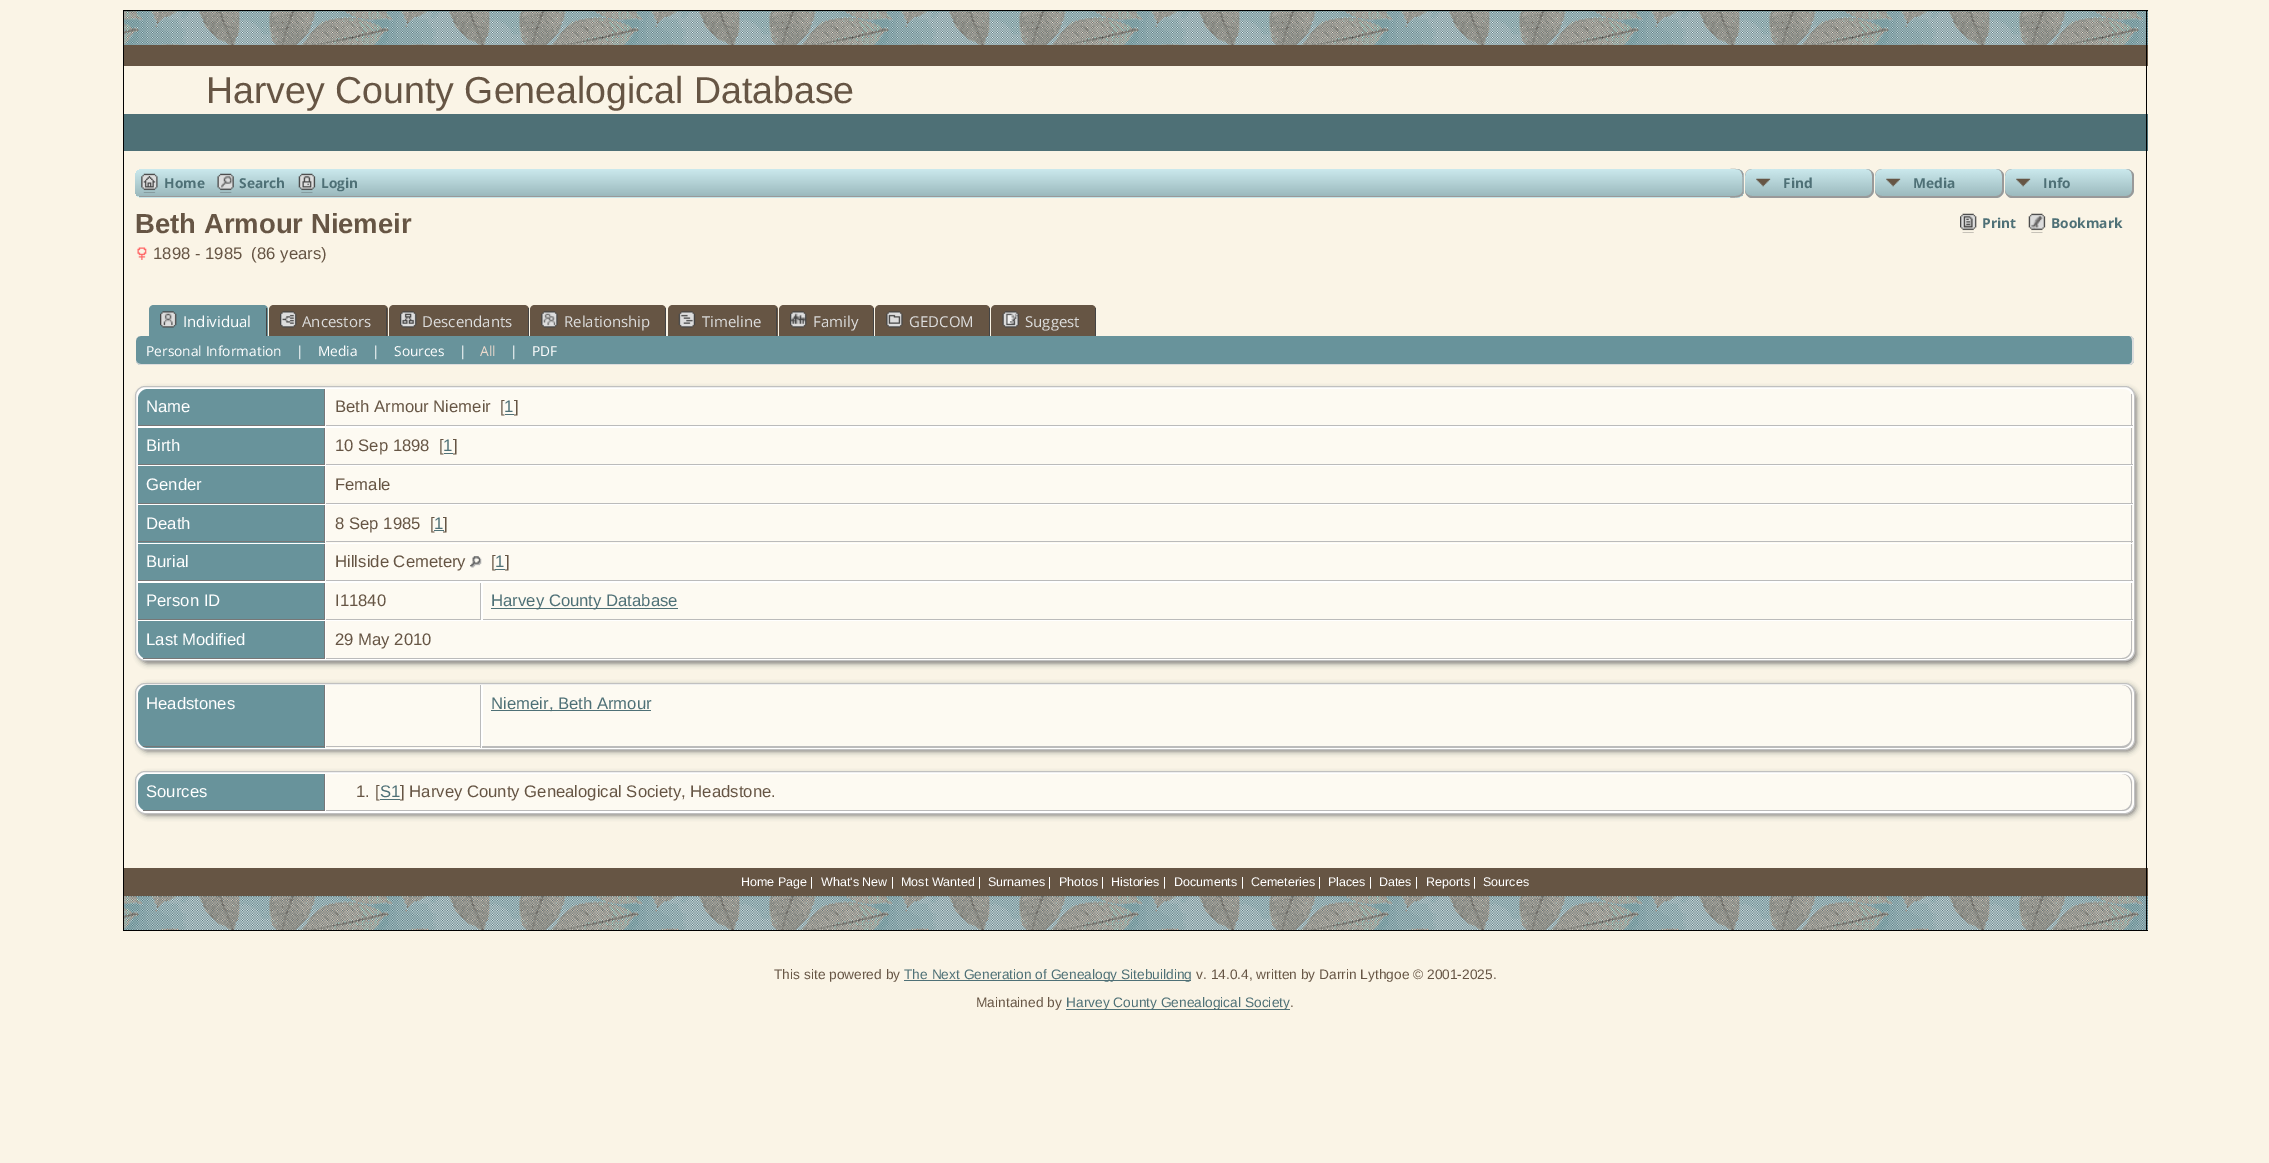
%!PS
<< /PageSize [2269 1163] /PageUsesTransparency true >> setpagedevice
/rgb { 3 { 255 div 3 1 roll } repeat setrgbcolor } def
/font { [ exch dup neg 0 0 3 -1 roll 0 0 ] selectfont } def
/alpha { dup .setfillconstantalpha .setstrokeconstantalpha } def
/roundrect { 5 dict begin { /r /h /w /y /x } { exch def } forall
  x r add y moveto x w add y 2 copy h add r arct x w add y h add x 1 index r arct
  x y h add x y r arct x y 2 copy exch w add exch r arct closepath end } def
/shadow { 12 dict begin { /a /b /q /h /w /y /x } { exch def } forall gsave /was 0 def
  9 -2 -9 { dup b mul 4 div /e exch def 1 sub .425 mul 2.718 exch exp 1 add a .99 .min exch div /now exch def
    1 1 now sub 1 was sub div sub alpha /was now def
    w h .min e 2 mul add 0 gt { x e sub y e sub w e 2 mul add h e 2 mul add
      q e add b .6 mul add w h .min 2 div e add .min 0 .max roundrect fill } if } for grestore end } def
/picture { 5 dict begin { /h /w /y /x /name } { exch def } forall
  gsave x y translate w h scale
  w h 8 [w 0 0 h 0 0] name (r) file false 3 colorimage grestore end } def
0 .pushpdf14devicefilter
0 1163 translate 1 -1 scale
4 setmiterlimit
250 244 230 rgb
0 0 2269 1163 rectfill
0 0 0 rgb
123 10 2025 1 rectfill
78 112 118 rgb
124 11 2024 34 rectfill
(img/1.rgb) 124 11 2024 34 picture
[
  [124 45 2024 21 102 85 68]
  [124 114 2024 37 78 112 118]
  [124 868 2024 28 102 85 68]
  [124 896 2024 34 78 112 118]
] { aload pop rgb rectfill } forall
(img/20.rgb) 124 896 2024 34 picture
[
  [2146 10 1 921 0 0 0]
  [123 930 2025 1 0 0 0]
  [123 10 1 921 0 0 0]
] { aload pop rgb rectfill } forall
180 209 214 rgb
135 169 2000 29 8 roundrect fill
gsave
135 169 2000 29 8 roundrect clip newpath
gsave 143 169 moveto 2127 169 lineto 2131.5 169 2135 172.5 2135 177 curveto 2135 196 lineto 135 196 lineto 135 177 lineto 135 172.5 138.5 169 143 169 curveto closepath clip newpath
<< /ShadingType 2 /ColorSpace /DeviceRGB /Coords [1135 169 1135 196] /Extend [true true] /Function << /FunctionType 2 /Domain [0 1] /C0 [0.796 0.914 0.929] /C1 [0.608 0.725 0.741] /N 1 >> >> shfill grestore
gsave 135 196 moveto 1730 196 lineto 1730 198 lineto 135 198 lineto closepath clip newpath
<< /ShadingType 2 /ColorSpace /DeviceRGB /Coords [1135 196 1135 224] /Extend [true true] /Function << /FunctionType 2 /Domain [0 1] /C0 [0.796 0.914 0.929] /C1 [0.608 0.725 0.741] /N 1 >> >> shfill grestore
grestore
153 153 153 rgb
139 196 1591 1 rectfill
(img/2.rgb) 141 173 17 20 picture
(img/3.rgb) 217 173 17 20 picture
(img/4.rgb) 298 173 18 20 picture
250 244 230 rgb
1736 169 399 29 rectfill
gsave
1730 169 moveto 1736 169 lineto 1740.5 169 1744 172.5 1744 177 curveto 1744 190 lineto 1744 194.5 1740.5 198 1736 198 curveto 1730 198 lineto closepath clip newpath
gsave 1730 169 moveto 1744 169 lineto 1744 196 lineto 1730 196 lineto closepath clip newpath
<< /ShadingType 2 /ColorSpace /DeviceRGB /Coords [1736 169 1736 196] /Extend [true true] /Function << /FunctionType 2 /Domain [0 1] /C0 [0.796 0.914 0.929] /C1 [0.608 0.725 0.741] /N 1 >> >> shfill grestore
gsave 1730 196 moveto 1744 196 lineto 1744 198 lineto 1730 198 lineto closepath clip newpath
<< /ShadingType 2 /ColorSpace /DeviceRGB /Coords [1736 196 1736 224] /Extend [true true] /Function << /FunctionType 2 /Domain [0 1] /C0 [0.796 0.914 0.929] /C1 [0.608 0.725 0.741] /N 1 >> >> shfill grestore
grestore
153 153 153 rgb
1730 169 moveto 1735.5 169 1742 168 1743.5 174.5 curveto 1743.5 191.5 lineto 1742 198.5 1735.5 197.5 1730 197.5 curveto closepath 1730 169 moveto 1737.5 169 lineto 1743.5 170.5 1742.5 178.5 1742.5 183 curveto 1742.5 191.5 lineto 1741 197 1734.5 196 1730 196 curveto closepath eofill
180 209 214 rgb
1745 169 129 29 8 roundrect fill
(img/5.rgb) 1745 169 128 28 picture
153 153 153 rgb
1752 169 moveto 1866 169 lineto 1870 169 1874 172 1874 176 curveto 1874 190 lineto 1874 194 1870 198 1866 198 curveto 1752 198 lineto 1748 198 1745 194 1745 190 curveto 1745 176 lineto 1745 172 1748 169 1752 169 curveto closepath 1752 169 moveto 1866 169 lineto 1870 169 1872 172 1872 176 curveto 1872 190 lineto 1872 193 1870 196 1866 196 curveto 1752 196 lineto 1748 196 1745 193 1745 190 curveto 1745 176 lineto 1745 172 1748 169 1752 169 curveto closepath eofill
180 209 214 rgb
1875 169 129 29 8 roundrect fill
(img/6.rgb) 1875 169 128 28 picture
153 153 153 rgb
1882 169 moveto 1996 169 lineto 2000 169 2004 172 2004 176 curveto 2004 190 lineto 2004 194 2000 198 1996 198 curveto 1882 198 lineto 1878 198 1875 194 1875 190 curveto 1875 176 lineto 1875 172 1878 169 1882 169 curveto closepath 1882 169 moveto 1996 169 lineto 2000 169 2002 172 2002 176 curveto 2002 190 lineto 2002 193 2000 196 1996 196 curveto 1882 196 lineto 1878 196 1875 193 1875 190 curveto 1875 176 lineto 1875 172 1878 169 1882 169 curveto closepath eofill
180 209 214 rgb
2005 169 129 29 8 roundrect fill
(img/7.rgb) 2005 169 128 28 picture
153 153 153 rgb
2012 169 moveto 2126 169 lineto 2130 169 2134 172 2134 176 curveto 2134 190 lineto 2134 194 2130 198 2126 198 curveto 2012 198 lineto 2008 198 2005 194 2005 190 curveto 2005 176 lineto 2005 172 2008 169 2012 169 curveto closepath 2012 169 moveto 2126 169 lineto 2130 169 2132 172 2132 176 curveto 2132 190 lineto 2132 193 2130 196 2126 196 curveto 2012 196 lineto 2008 196 2005 193 2005 190 curveto 2005 176 lineto 2005 172 2008 169 2012 169 curveto closepath eofill
(img/8.rgb) 137 247 10 13 picture
104 147 155 rgb
154 305 moveto 263 305 lineto 266 305 268 307 268 310 curveto 268 336 lineto 149 336 lineto 149 310 lineto 149 307 151 305 154 305 curveto closepath fill
68 68 68 rgb
266 308 1 28 rectfill
(img/9.rgb) 160 311 17 17 picture
102 85 68 rgb
274 305 moveto 383 305 lineto 386 305 388 307 388 310 curveto 388 336 lineto 269 336 lineto 269 310 lineto 269 307 271 305 274 305 curveto closepath fill
68 68 68 rgb
386 308 1 28 rectfill
(img/10.rgb) 280 311 17 17 picture
102 85 68 rgb
394 305 moveto 524 305 lineto 527 305 529 307 529 310 curveto 529 336 lineto 389 336 lineto 389 310 lineto 389 307 391 305 394 305 curveto closepath fill
68 68 68 rgb
528 308 1 28 rectfill
(img/11.rgb) 400 311 17 17 picture
102 85 68 rgb
535 305 moveto 661 305 lineto 664 305 666 307 666 310 curveto 666 336 lineto 530 336 lineto 530 310 lineto 530 307 532 305 535 305 curveto closepath fill
68 68 68 rgb
665 308 1 28 rectfill
(img/12.rgb) 541 311 17 17 picture
102 85 68 rgb
673 305 moveto 773 305 lineto 776 305 778 307 778 310 curveto 778 336 lineto 668 336 lineto 668 310 lineto 668 307 670 305 673 305 curveto closepath fill
68 68 68 rgb
776 308 1 28 rectfill
(img/13.rgb) 678 311 18 17 picture
102 85 68 rgb
784 305 moveto 869 305 lineto 872 305 874 307 874 310 curveto 874 336 lineto 779 336 lineto 779 310 lineto 779 307 781 305 784 305 curveto closepath fill
68 68 68 rgb
873 308 1 28 rectfill
(img/14.rgb) 790 311 17 17 picture
102 85 68 rgb
880 305 moveto 985 305 lineto 988 305 990 307 990 310 curveto 990 336 lineto 875 336 lineto 875 310 lineto 875 307 877 305 880 305 curveto closepath fill
68 68 68 rgb
989 308 1 28 rectfill
(img/15.rgb) 886 311 17 17 picture
102 85 68 rgb
996 305 moveto 1091 305 lineto 1094 305 1096 307 1096 310 curveto 1096 336 lineto 991 336 lineto 991 310 lineto 991 307 993 305 996 305 curveto closepath fill
68 68 68 rgb
1095 308 1 28 rectfill
(img/16.rgb) 1002 311 17 17 picture
104 147 155 rgb
136 336 1998 29 5 roundrect fill
221 221 221 rgb
141 336 moveto 2129 336 lineto 2132 336 2134 338 2134 341 curveto 2134 360 lineto 2134 363 2132 365 2129 365 curveto 141 365 lineto 138 365 136 363 136 360 curveto 136 341 lineto 136 338 138 336 141 336 curveto closepath 141 336 moveto 2129 336 lineto 2131 336 2132 338 2132 341 curveto 2132 360 lineto 2132 362 2131 364 2129 364 curveto 141 364 lineto 138 364 136 362 136 360 curveto 136 341 lineto 136 338 138 336 141 336 curveto closepath eofill
102 102 102 rgb
139 390 1997 273 9 3 1 shadow
255 255 255 rgb
135.5 386.5 1999 274 9.5 roundrect gsave fill grestore
192 192 192 rgb
stroke
104 147 155 rgb
148 389 moveto 325 389 lineto 325 426 lineto 138 426 lineto 138 399 lineto 138 393.5 142.5 389 148 389 curveto closepath fill
119 119 119 rgb
324 389 1 37 rectfill
138 425 187 1 rectfill
253 250 242 rgb
326 389 moveto 2123 389 lineto 2128.5 389 2133 393.5 2133 399 curveto 2133 426 lineto 326 426 lineto closepath fill
[
  [2131 394 1 32 187 187 187]
  [326 425 1807 1 187 187 187]
  [505 414 9 1 78 112 118]
  [138 428 186 36 104 147 155]
  [324 428 1 37 119 119 119]
  [138 464 187 1 119 119 119]
  [326 428 1807 36 253 250 242]
  [2131 428 1 37 187 187 187]
  [326 464 1807 1 187 187 187]
  [444 453 9 1 78 112 118]
  [138 466 186 37 104 147 155]
  [324 466 1 38 119 119 119]
  [138 503 187 1 119 119 119]
  [326 466 1807 37 253 250 242]
  [2131 466 1 38 187 187 187]
  [326 503 1807 1 187 187 187]
  [138 505 186 38 104 147 155]
  [324 505 1 38 119 119 119]
  [138 541 187 1 119 119 119]
  [326 505 1807 38 253 250 242]
  [2131 505 1 38 187 187 187]
  [326 541 1807 1 187 187 187]
  [138 544 186 36 104 147 155]
  [324 544 1 37 119 119 119]
  [138 580 187 1 119 119 119]
  [326 544 1807 36 253 250 242]
  [2131 544 1 37 187 187 187]
  [326 580 1807 1 187 187 187]
] { aload pop rgb rectfill } forall
(img/17.rgb) 470 556 12 12 picture
[
  [138 583 186 36 104 147 155]
  [324 583 1 37 119 119 119]
  [138 619 187 1 119 119 119]
  [326 583 154 36 253 250 242]
  [480 583 1 37 187 187 187]
  [326 619 155 1 187 187 187]
  [483 583 1650 36 253 250 242]
  [2131 583 1 37 187 187 187]
  [483 619 1650 1 187 187 187]
  [491 608 187 1 78 112 118]
] { aload pop rgb rectfill } forall
104 147 155 rgb
138 621 moveto 325 621 lineto 325 659 lineto 148 659 lineto 142.5 659 138 654.5 138 649 curveto closepath fill
119 119 119 rgb
324 621 1 38 rectfill
143 658 182 1 rectfill
253 250 242 rgb
326 621 moveto 2133 621 lineto 2133 649 lineto 2133 654.5 2128.5 659 2123 659 curveto 326 659 lineto closepath fill
187 187 187 rgb
326 621 moveto 2132 621 lineto 2132 649 lineto 2132 654 2128 659 2122 659 curveto 326 659 lineto closepath 326 621 moveto 2131 621 lineto 2131 649 lineto 2131 654 2127 658 2122 658 curveto 326 658 lineto closepath eofill
102 102 102 rgb
139 686 1997 65 9 3 1 shadow
255 255 255 rgb
135.5 683.5 1999 66 9.5 roundrect gsave fill grestore
192 192 192 rgb
stroke
104 147 155 rgb
148 685 moveto 325 685 lineto 325 748 lineto 148 748 lineto 142.5 748 138 743.5 138 738 curveto 138 695 lineto 138 689.5 142.5 685 148 685 curveto closepath fill
[
  [324 685 1 63 119 119 119]
  [143 746 182 1 119 119 119]
  [326 685 154 63 253 250 242]
  [480 685 1 63 187 187 187]
  [326 746 155 1 187 187 187]
] { aload pop rgb rectfill } forall
253 250 242 rgb
483 685 moveto 2123 685 lineto 2128.5 685 2133 689.5 2133 695 curveto 2133 738 lineto 2133 743.5 2128.5 748 2123 748 curveto 483 748 lineto closepath fill
187 187 187 rgb
482 685 moveto 2122 685 lineto 2128 685 2132 689 2132 695 curveto 2132 738 lineto 2132 743 2128 748 2122 748 curveto 482 748 lineto closepath 482 685 moveto 2122 685 lineto 2127 685 2131 689 2131 695 curveto 2131 738 lineto 2131 742 2127 746 2122 746 curveto 482 746 lineto closepath eofill
78 112 118 rgb
491 710 160 1 rectfill
102 102 102 rgb
139 775 1997 40 9 3 1 shadow
255 255 255 rgb
135.5 771.5 1999 42 9.5 roundrect gsave fill grestore
192 192 192 rgb
stroke
104 147 155 rgb
148 774 moveto 325 774 lineto 325 811 lineto 148 811 lineto 142.5 811 138 806.5 138 801 curveto 138 784 lineto 138 778.5 142.5 774 148 774 curveto closepath fill
119 119 119 rgb
324 774 1 37 rectfill
143 810 182 1 rectfill
253 250 242 rgb
326 774 moveto 2123 774 lineto 2128.5 774 2133 778.5 2133 784 curveto 2133 801 lineto 2133 806.5 2128.5 811 2123 811 curveto 326 811 lineto closepath fill
187 187 187 rgb
326 774 moveto 2122 774 lineto 2128 774 2132 778 2132 784 curveto 2132 801 lineto 2132 807 2128 811 2122 811 curveto 326 811 lineto closepath 326 774 moveto 2122 774 lineto 2127 774 2131 778 2131 784 curveto 2131 801 lineto 2131 806 2127 810 2122 810 curveto 326 810 lineto closepath eofill
78 112 118 rgb
380 799 20 1 rectfill
(img/18.rgb) 1960 213 17 20 picture
(img/19.rgb) 2028 213 18 20 picture
904 980 287 1 rectfill
1066 1009 224 1 rectfill
/LiberationSans-Regular 37.5 font
102 85 68 rgb
206 103 moveto (Harvey County Genealogical Database) show
/OpenSans-Bold 13.75 font
78 112 118 rgb
[
  [(Home) 164 188]
  [(Search) 239 188]
  [(Login) 321 188]
  [(Find) 1783 188]
  [(Media) 1913 188]
  [(Info) 2043 188]
] { aload pop moveto show } forall
/LiberationSans-Bold 27.5 font
102 85 68 rgb
135 233 moveto (Beth Armour Niemeir) show
/LiberationSans-Regular 16.7 font
153 259 moveto (1898 - 1985  \(86 years\)) show
/OpenSans-Regular 15 font
255 255 255 rgb
183 327 moveto (Individual) show
221 221 221 rgb
[
  [(Ancestors) 302 327]
  [(Descendants) 422 327]
  [(Relationship) 564 327]
  [(Timeline) 702 327]
  [(Family) 813 327]
  [(GEDCOM) 909 327]
  [(Suggest) 1025 327]
] { aload pop moveto show } forall
/OpenSans-Regular 13.75 font
255 255 255 rgb
[
  [(Personal Information) 146 356]
  [(|) 296 356]
  [(Media) 318 356]
  [(|) 372 356]
  [(Sources) 394 356]
  [(|) 459 356]
] { aload pop moveto show } forall
236 217 204 rgb
480 356 moveto (All) show
255 255 255 rgb
510 356 moveto (|) show
532 356 moveto (PDF) show
/LiberationSans-Regular 16.7 font
146 412 moveto (Name) show
102 85 68 rgb
335 412 moveto (Beth Armour Niemeir) show
500 412 moveto ([) show
78 112 118 rgb
504 412 moveto (1) show
102 85 68 rgb
514 412 moveto (]) show
255 255 255 rgb
146 451 moveto (Birth) show
102 85 68 rgb
335 451 moveto (10 Sep 1898  [) show
78 112 118 rgb
443 451 moveto (1) show
102 85 68 rgb
453 451 moveto (]) show
255 255 255 rgb
146 490 moveto (Gender) show
102 85 68 rgb
335 490 moveto (Female) show
255 255 255 rgb
146 529 moveto (Death) show
102 85 68 rgb
335 529 moveto (8 Sep 1985  [) show
78 112 118 rgb
434 529 moveto (1) show
434 530 10 1 rectfill
102 85 68 rgb
443 529 moveto (]) show
255 255 255 rgb
146 567 moveto (Burial) show
102 85 68 rgb
335 567 moveto (Hillside Cemetery) show
491 567 moveto ([) show
78 112 118 rgb
495 567 moveto (1) show
495 569 10 1 rectfill
102 85 68 rgb
505 567 moveto (]) show
255 255 255 rgb
146 606 moveto (Person ID) show
102 85 68 rgb
335 606 moveto (I11840) show
78 112 118 rgb
491 606 moveto (Harvey County Database) show
255 255 255 rgb
146 645 moveto (Last Modified) show
102 85 68 rgb
335 645 moveto (29 May 2010) show
255 255 255 rgb
146 709 moveto (Headstones) show
78 112 118 rgb
491 709 moveto (Niemeir, Beth Armour) show
255 255 255 rgb
146 797 moveto (Sources) show
102 85 68 rgb
356 797 moveto (1. [) show
78 112 118 rgb
380 797 moveto (S1) show
102 85 68 rgb
400 797 moveto (] Harvey County Genealogical Society, Headstone.) show
/OpenSans-Bold 13.75 font
78 112 118 rgb
1982 228 moveto (Print) show
2051 228 moveto (Bookmark) show
/LiberationSans-Regular 12.5 font
255 255 255 rgb
[
  [(Home Page |) 741 886]
  [(What's New |) 821 886]
  [(Most Wanted |) 901 886]
  [(Surnames |) 988 886]
  [(Photos |) 1059 886]
  [(Histories |) 1111 886]
  [(Documents |) 1174 886]
  [(Cemeteries |) 1251 886]
  [(Places |) 1328 886]
  [(Dates |) 1379 886]
  [(Reports |) 1426 886]
  [(Sources) 1483 886]
] { aload pop moveto show } forall
/LiberationSans-Regular 13.75 font
102 85 68 rgb
774 979 moveto (This site powered by) show
78 112 118 rgb
904 979 moveto (The Next Generation of Genealogy Sitebuilding) show
102 85 68 rgb
1196 979 moveto (v. 14.0.4, written by Darrin Lythgoe © 2001-2025.) show
976 1007 moveto (Maintained by) show
78 112 118 rgb
1066 1007 moveto (Harvey County Genealogical Society) show
102 85 68 rgb
1290 1007 moveto (.) show
.poppdf14devicefilter showpage
